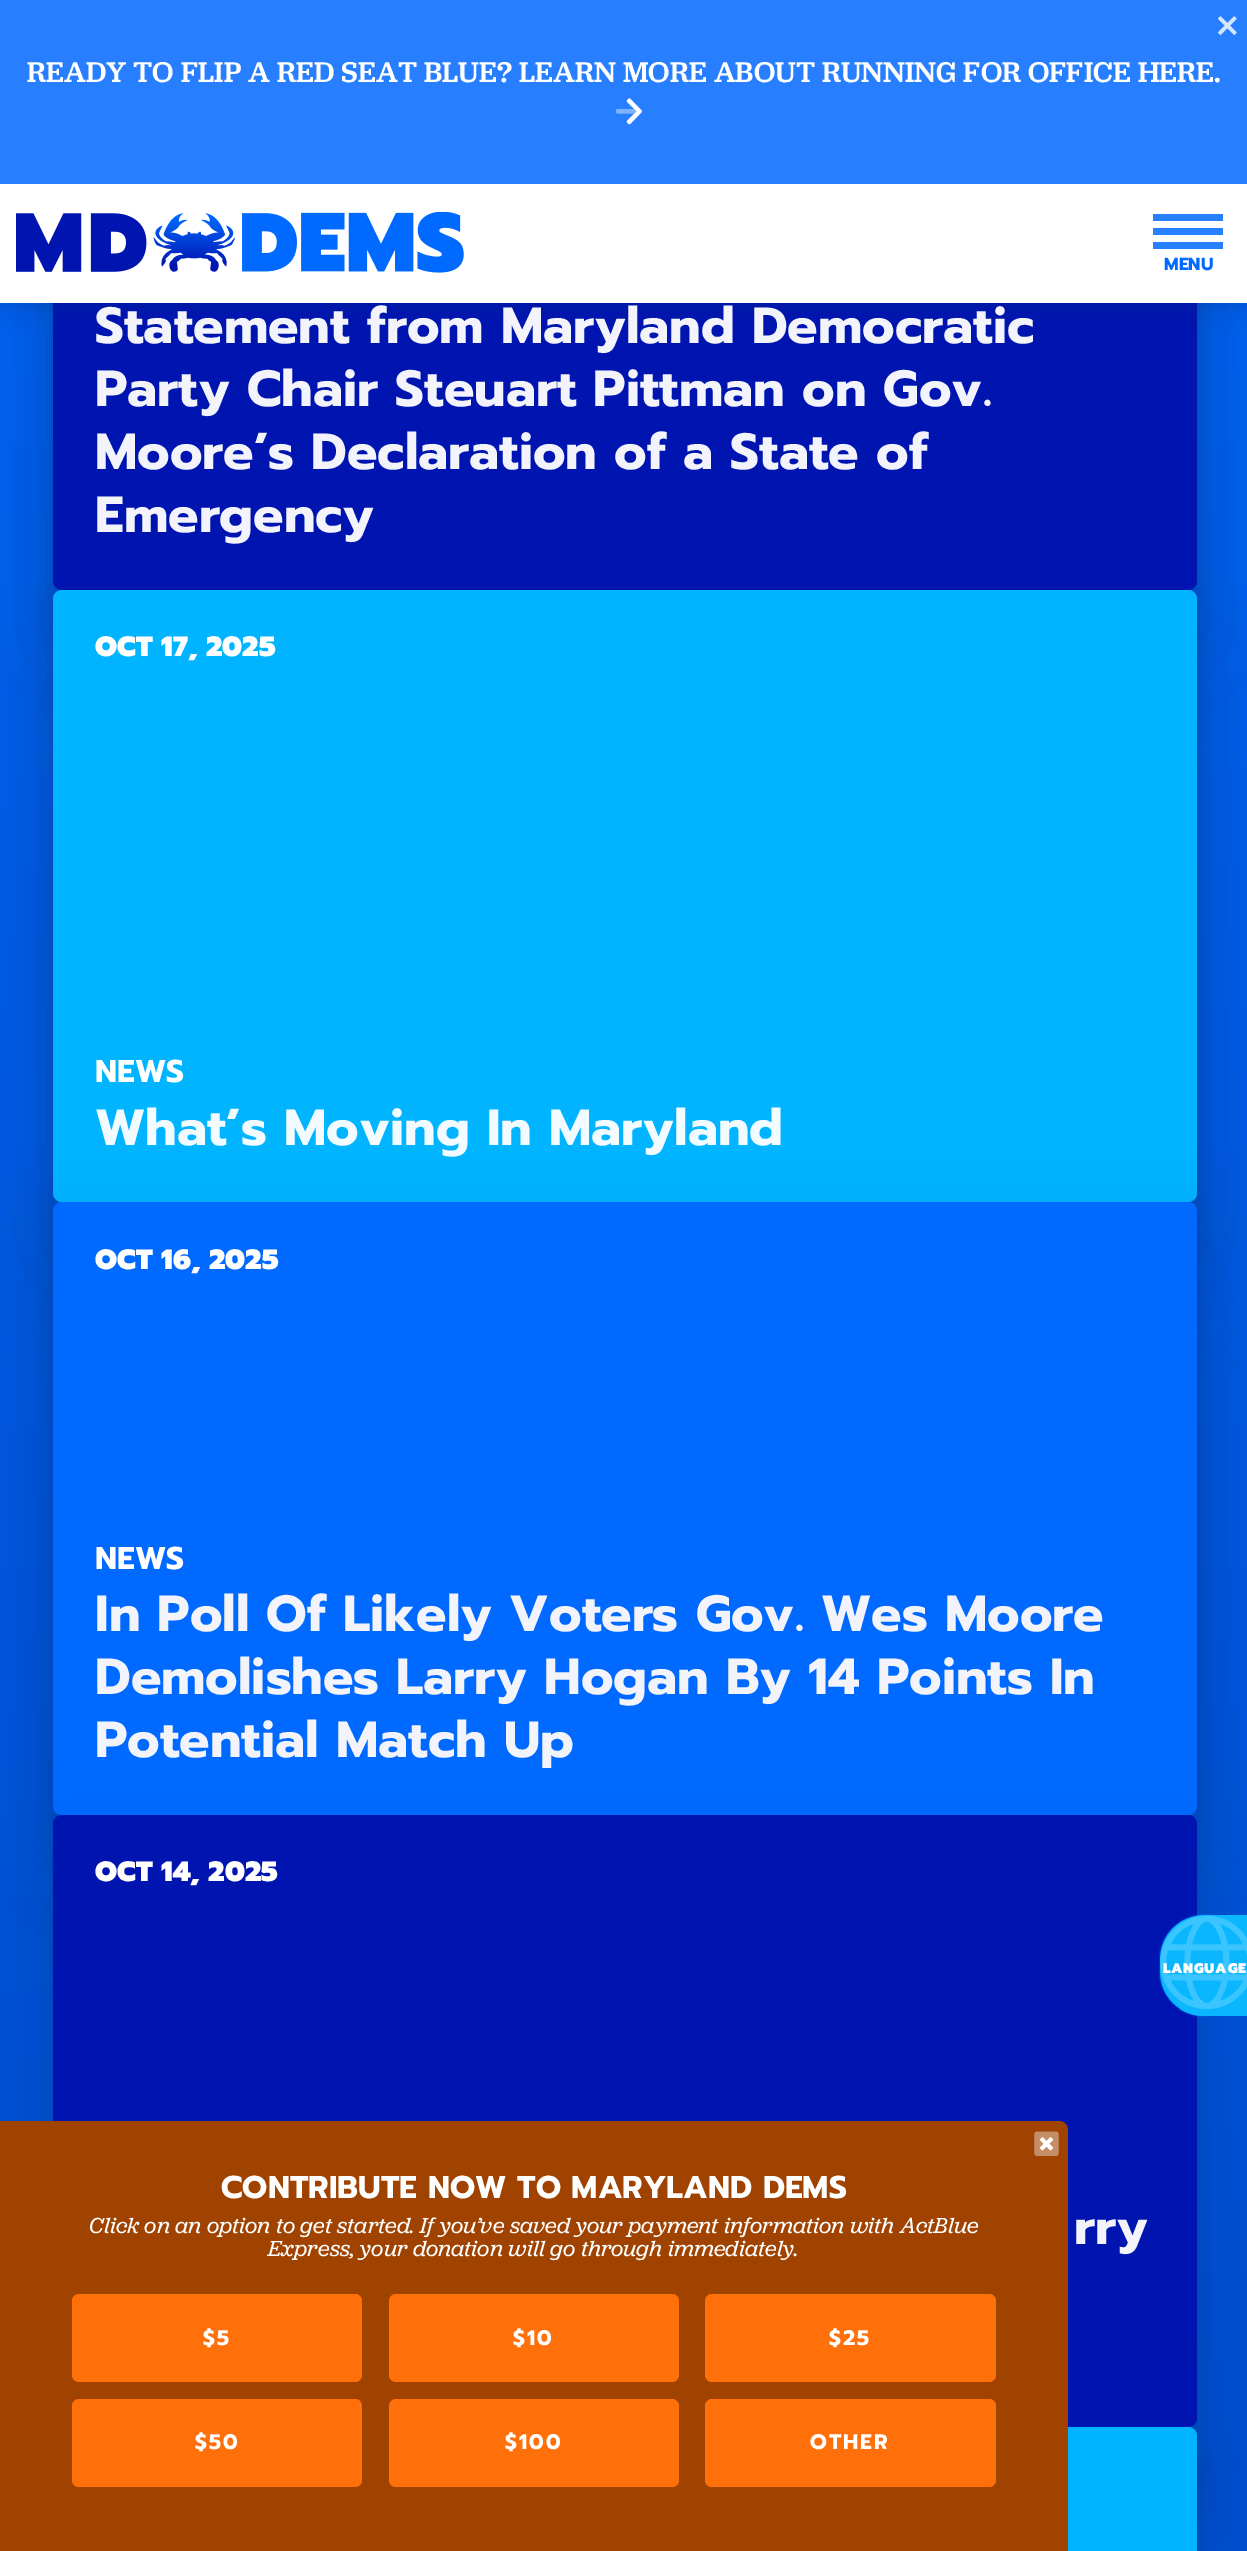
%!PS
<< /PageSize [1247 2551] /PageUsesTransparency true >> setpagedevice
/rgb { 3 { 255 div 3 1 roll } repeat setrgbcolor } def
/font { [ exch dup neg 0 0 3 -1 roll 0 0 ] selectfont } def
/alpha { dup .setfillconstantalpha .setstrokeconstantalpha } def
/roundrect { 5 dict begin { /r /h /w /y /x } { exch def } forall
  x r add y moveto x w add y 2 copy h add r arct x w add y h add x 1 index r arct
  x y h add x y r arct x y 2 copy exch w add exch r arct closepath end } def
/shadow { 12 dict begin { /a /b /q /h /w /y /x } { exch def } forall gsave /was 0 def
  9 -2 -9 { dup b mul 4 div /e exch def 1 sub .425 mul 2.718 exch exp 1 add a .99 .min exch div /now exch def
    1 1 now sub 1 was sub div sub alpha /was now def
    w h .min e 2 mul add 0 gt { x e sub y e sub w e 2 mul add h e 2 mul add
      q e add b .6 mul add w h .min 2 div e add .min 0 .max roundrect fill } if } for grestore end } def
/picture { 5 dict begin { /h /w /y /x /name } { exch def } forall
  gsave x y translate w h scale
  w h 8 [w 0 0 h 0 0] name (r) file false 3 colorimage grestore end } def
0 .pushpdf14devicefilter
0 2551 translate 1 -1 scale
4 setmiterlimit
255 255 255 rgb
0 0 1247 2551 rectfill
gsave 0 303 moveto 1247 303 lineto 1247 2551 lineto 0 2551 lineto closepath clip newpath
<< /ShadingType 2 /ColorSpace /DeviceRGB /Coords [624 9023 624 -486] /Extend [true true] /Function << /FunctionType 2 /Domain [0 1] /C0 [0.004 0.078 0.431] /C1 [0 0.408 1] /N 1 >> >> shfill grestore
0 45 128 rgb
56 4 1138 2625 0 26 0.2 shadow
56 -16 1138 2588 0 7 0.2 shadow
53 47 1144 613 9 52.5 0.2 shadow
53 4 1144 612 9 26 0.2 shadow
0 20 176 rgb
53 -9 1144 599 9 roundrect fill
0 45 128 rgb
0 12 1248 303 0 12 0.15 shadow
0 5 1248 303 0 4.5 0.1 shadow
255 255 255 rgb
0 184 1247 119 rectfill
39 127 255 rgb
0 0 1247 184 rectfill
(img/1.rgb) 1218 16 19 19 picture
(img/2.rgb) 626 98 16 27 picture
(img/3.rgb) 616 108 21 6 picture
(img/4.rgb) 16 212 448 61 picture
[
  [1153 214 70 7 38 128 255]
  [1153 228 70 7 38 128 255]
  [1153 242 70 7 38 128 255]
] { aload pop rgb rectfill } forall
0 45 128 rgb
53 660 1144 612 9 52.5 0.2 shadow
53 616 1144 613 9 26 0.2 shadow
0 180 255 rgb
53 590 1144 612 9 roundrect fill
0 45 128 rgb
53 1272 1144 613 9 52.5 0.2 shadow
53 1229 1144 612 9 26 0.2 shadow
0 105 255 rgb
53 1202 1144 613 9 roundrect fill
0 45 128 rgb
53 1885 1144 612 9 52.5 0.2 shadow
0 20 176 rgb
53 1815 1144 612 9 roundrect fill
0 45 128 rgb
53 2454 1144 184 9 26 0.2 shadow
0 180 255 rgb
53 2427 1144 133 9 roundrect fill
160 66 0 rgb
0 2121 moveto 1059 2121 lineto 1064 2121 1068 2125 1068 2130 curveto 1068 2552 lineto 0 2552 lineto closepath fill
(img/6.rgb) 1039 2137 15 14 picture
(img/5.rgb) 1034 2131 25 25 picture
255 112 10 rgb
72 2294 290 88 7 roundrect fill
389 2294 290 88 7 roundrect fill
705 2294 291 88 7 roundrect fill
72 2399 290 88 7 roundrect fill
389 2399 290 88 7 roundrect fill
705 2399 291 88 7 roundrect fill
0 105 255 rgb
1160 1915 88 101 44 1 1 shadow
10 183 255 rgb
1204 1915 moveto 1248 1915 lineto 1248 2016 lineto 1204 2016 lineto 1179.5 2016 1160 1996.5 1160 1972 curveto 1160 1959 lineto 1160 1934.5 1179.5 1915 1204 1915 curveto closepath fill
(img/7.rgb) 1160 1915 87 94 picture
/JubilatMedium-Medium 29.75 font
255 255 255 rgb
27 82 moveto (READY TO FLIP A RED SEAT BLUE? LEARN MORE ABOUT RUNNING FOR OFFICE HERE.) show
/Prompt-Bold 17.5 font
0 105 255 rgb
1164 270 moveto (MENU) show
/Prompt-Bold 50.75 font
242 243 251 rgb
[
  [(Statement from Maryland Democratic) 95 343]
  [(Party Chair Steuart Pittman on Gov.) 95 406]
  [(Moore’s Declaration of a State of) 95 469]
  [(Emergency) 95 532]
] { aload pop moveto show } forall
/Prompt-Black 28 font
255 255 255 rgb
95 656 moveto (OCT 17, 2025) show
/Prompt-Bold 31.5 font
95 1082 moveto (NEWS) show
/Prompt-Bold 50.75 font
242 251 255 rgb
95 1145 moveto (What’s Moving In Maryland) show
/Prompt-Black 28 font
255 255 255 rgb
95 1269 moveto (OCT 16, 2025) show
/Prompt-Bold 31.5 font
95 1569 moveto (NEWS) show
/Prompt-Bold 50.75 font
242 243 251 rgb
[
  [(In Poll Of Likely Voters Gov. Wes Moore) 95 1631]
  [(Demolishes Larry Hogan By 14 Points In) 95 1694]
  [(Potential Match Up) 95 1757]
] { aload pop moveto show } forall
/Prompt-Black 28 font
255 255 255 rgb
95 1881 moveto (OCT 14, 2025) show
/Prompt-Bold 50.75 font
242 243 251 rgb
1074 2244 moveto (rry) show
/Prompt-Bold 31.5 font
255 255 255 rgb
221 2198 moveto (CONTRIBUTE NOW TO MARYLAND DEMS) show
/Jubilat-Italic 22.75 font
89 2233 moveto (Click on an option to get started. If you’ve saved your payment information with ActBlue) show
268 2256 moveto (Express, your donation will go through immediately.) show
/Prompt-Bold 21 font
203 2345 moveto 2 0 ($5) ashow
513 2345 moveto 2 0 ($10) ashow
829 2345 moveto 2 0 ($25) ashow
195 2449 moveto 2 0 ($50) ashow
505 2449 moveto 2 0 ($100) ashow
810 2449 moveto 2 0 (OTHER) ashow
/Prompt-Black 14 font
1163 1973 moveto 0.75 0 (LANGUAGE) ashow
.poppdf14devicefilter showpage
